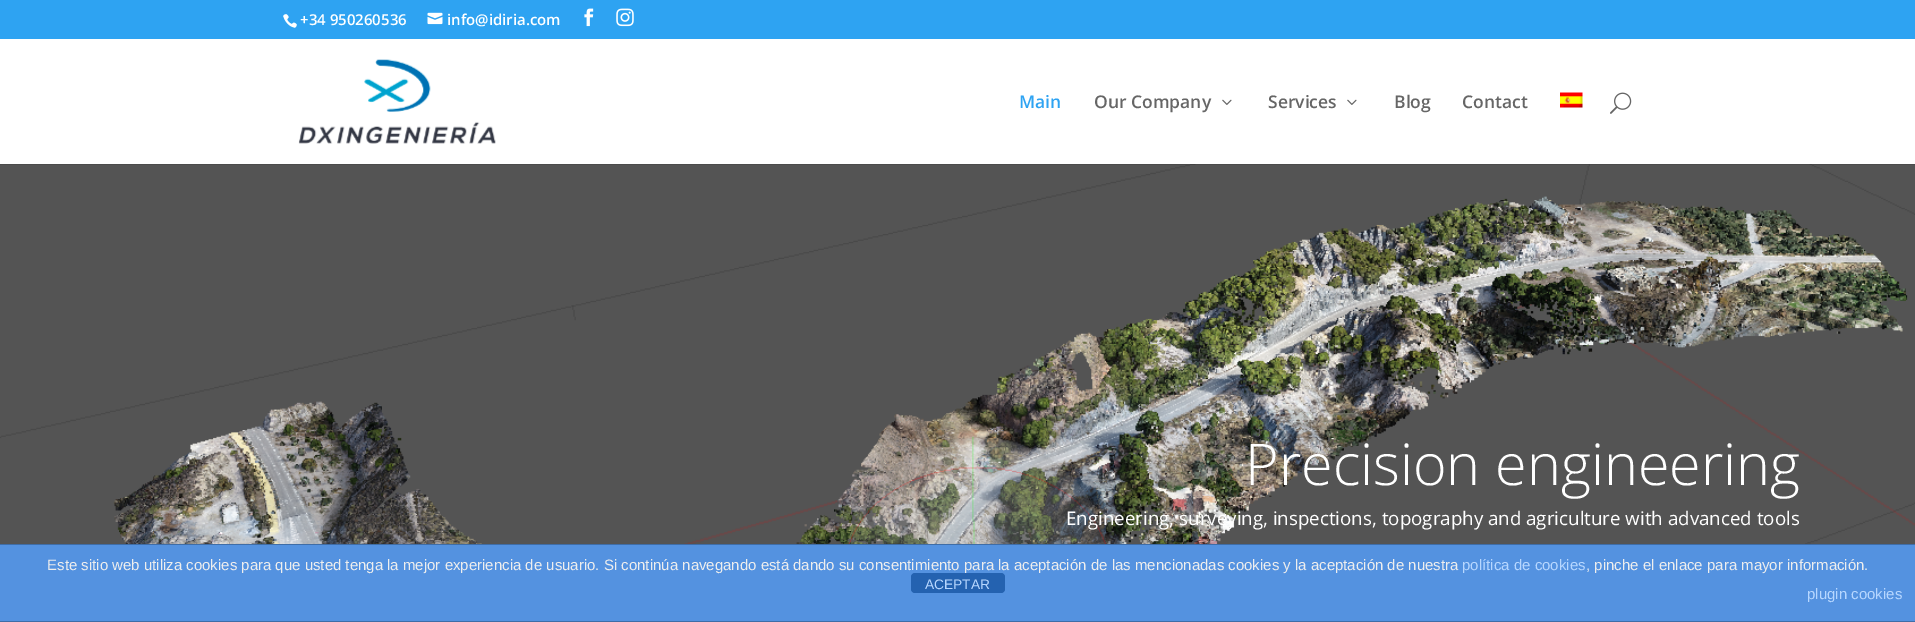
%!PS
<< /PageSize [1915 622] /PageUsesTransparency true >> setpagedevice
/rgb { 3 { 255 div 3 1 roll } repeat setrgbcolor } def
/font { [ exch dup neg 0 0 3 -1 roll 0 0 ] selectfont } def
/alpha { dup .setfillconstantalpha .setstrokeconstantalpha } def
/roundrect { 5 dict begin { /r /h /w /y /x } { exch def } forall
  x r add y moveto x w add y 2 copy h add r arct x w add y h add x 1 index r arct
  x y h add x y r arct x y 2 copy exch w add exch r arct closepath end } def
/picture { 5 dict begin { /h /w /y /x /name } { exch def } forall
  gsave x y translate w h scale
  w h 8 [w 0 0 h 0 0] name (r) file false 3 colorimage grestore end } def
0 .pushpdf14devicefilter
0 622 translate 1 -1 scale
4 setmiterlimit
255 255 255 rgb
0 0 1915 622 rectfill
46 163 242 rgb
0 0 1915 39 rectfill
(img/1.rgb) 283 14 14 14 picture
(img/2.rgb) 427 12 16 13 picture
(img/3.rgb) 584 8 10 19 picture
(img/4.rgb) 616 8 18 19 picture
(img/9.rgb) 0 164 1915 380 picture
0.1 alpha
0 0 0 rgb
0 164 1915 1 rectfill
1 alpha
(img/5.rgb) 298 59 198 85 picture
(img/6.rgb) 1222 99 10 6 picture
(img/6.rgb) 1347 99 10 6 picture
(img/7.rgb) 1560 92 23 16 picture
(img/8.rgb) 1610 92 22 22 picture
[
  [0 545 1915 76 84 146 224]
  [0 544 1915 1 63 109 167]
  [0 621 1915 1 63 109 167]
] { aload pop rgb rectfill } forall
36 98 176 rgb
911 573 94 20 4 roundrect fill
/OpenSans-SemiBold 15 font
255 255 255 rgb
300 25 moveto (+34 950260536) show
447 25 moveto (info@idiria.com) show
/OpenSans-SemiBold 17.5 font
46 163 242 rgb
1019 108 moveto (Main) show
102 102 102 rgb
[
  [(Our Company) 1094 108]
  [(Services) 1268 108]
  [(Blog) 1394 108]
  [(Contact) 1462 108]
] { aload pop moveto show } forall
/OpenSans-Light 57.5 font
255 255 255 rgb
1245 485 moveto (Precision engineering) show
/OpenSans-Regular 18.75 font
1066 525 moveto (Engineering, surveying, inspections, topography and agriculture with advanced tools) show
/LiberationSans-Regular 15 font
238 238 238 rgb
47 570 moveto (Este sitio web utiliza cookies para que usted tenga la mejor experiencia de usuario. Si continúa navegando está dando su consentimiento para la aceptación de las mencionadas cookies y la aceptación de nuestra) show
183 215 255 rgb
1462 570 moveto (política de cookies) show
238 238 238 rgb
1586 570 moveto (, pinche el enlace para mayor información.) show
183 215 255 rgb
1807 599 moveto (plugin cookies) show
/LiberationSans-Regular 13.75 font
925 589 moveto (ACEPTAR) show
.poppdf14devicefilter showpage
